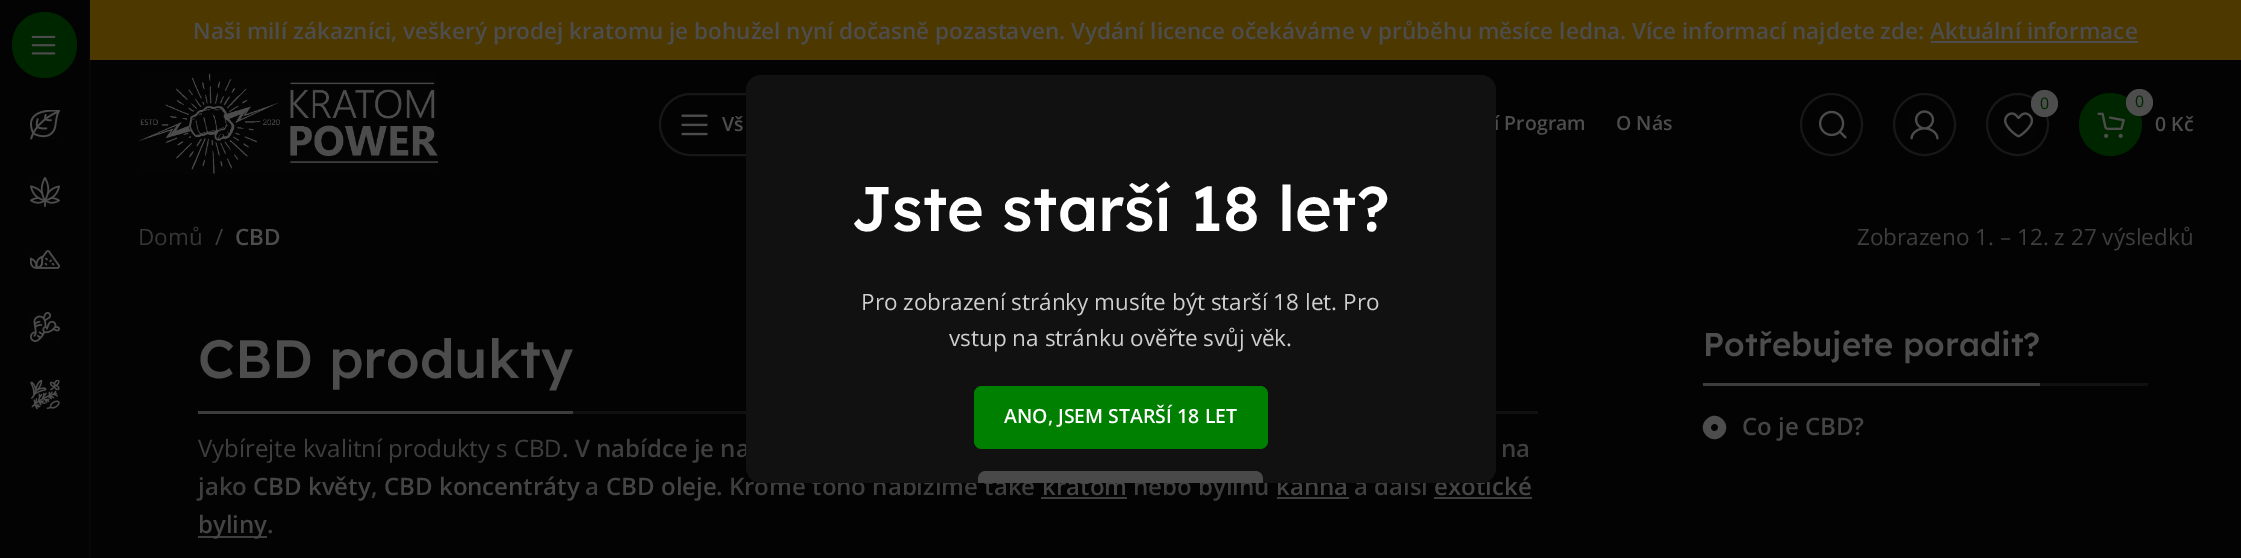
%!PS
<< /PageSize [2241 558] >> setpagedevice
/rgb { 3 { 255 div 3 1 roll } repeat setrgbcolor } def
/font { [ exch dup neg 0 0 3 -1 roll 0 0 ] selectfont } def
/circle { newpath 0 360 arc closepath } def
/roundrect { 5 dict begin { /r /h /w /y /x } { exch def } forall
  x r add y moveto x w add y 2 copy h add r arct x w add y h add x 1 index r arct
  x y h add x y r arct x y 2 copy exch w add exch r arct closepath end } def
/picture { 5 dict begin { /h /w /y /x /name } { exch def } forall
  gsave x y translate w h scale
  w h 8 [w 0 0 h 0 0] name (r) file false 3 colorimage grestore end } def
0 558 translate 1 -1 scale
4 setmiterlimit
3 3 3 rgb
0 0 2241 558 rectfill
8 8 8 rgb
89 0 1 558 rectfill
0 38 0 rgb
12 12 65 66 32.5 roundrect fill
(img/1.rgb) 31 35 25 20 picture
(img/2.rgb) 30 110 30 30 picture
(img/3.rgb) 30 177 30 30 picture
(img/4.rgb) 30 250 30 19 picture
(img/5.rgb) 30 312 30 30 picture
(img/6.rgb) 30 380 30 30 picture
[
  [91 0 2150 60 77 56 0]
  [90 0 1 60 72 54 4]
  [1931 41 207 2 77 77 77]
  [90 60 1 128 8 8 8]
] { aload pop rgb rectfill } forall
(img/7.rgb) 138 73 300 101 picture
23 23 23 rgb
2 setlinewidth
660 94 256 61 30.5 roundrect stroke
(img/8.rgb) 681 114 27 22 picture
1831.5 124.5 30.5 circle stroke
(img/9.rgb) 1818 110 29 29 picture
1924.5 124.5 30.5 circle stroke
(img/10.rgb) 1910 110 29 30 picture
2017.5 124.5 30.5 circle stroke
(img/11.rgb) 2004 112 30 26 picture
77 77 77 rgb
2044.5 103.5 13.5 circle fill
0 38 0 rgb
2110.5 124.5 31.5 circle fill
77 77 77 rgb
2139.5 102.5 13.5 circle fill
(img/12.rgb) 2097 112 28 26 picture
[
  [90 188 1 370 7 7 7]
  [573 411 965 3 16 16 16]
  [198 411 375 3 61 61 61]
  [1041 497 86 2 62 62 62]
  [1277 497 72 2 62 62 62]
  [1434 497 98 2 62 62 62]
  [198 536 69 2 62 62 62]
  [2040 383 108 3 16 16 16]
  [1703 383 337 3 61 61 61]
] { aload pop rgb rectfill } forall
77 77 77 rgb
1706.5 419.5 moveto 1717 408.5 1733.5 425 1722.5 435.5 curveto 1712 446.5 1695.5 430 1706.5 419.5 curveto closepath 1717 430 moveto 1720.5 426.5 1715.5 421.5 1712 425 curveto 1708.5 428.5 1713.5 433.5 1717 430 curveto closepath fill
/OpenSans-SemiBold 22.5 font
193 39 moveto (Naši milí zákazníci, veškerý prodej kratomu je bohužel nyní dočasně pozastaven. Vydání licence očekáváme v průběhu měsíce ledna. Více informací najdete zde: Aktuální informace) show
/OpenSans-SemiBold 19.5 font
[
  [(Vš) 722 131]
  [(í Program) 1494 130]
  [(O Nás) 1616 130]
] { aload pop moveto show } forall
/OpenSans-Regular 16 font
0 38 0 rgb
2040 109 moveto (0) show
2135 107 moveto (0) show
/OpenSans-SemiBold 19.5 font
77 77 77 rgb
2155 131 moveto (0 Kč) show
/OpenSans-Regular 22.5 font
54 54 54 rgb
138 245 moveto (Domů) show
62 62 62 rgb
215 245 moveto (/) show
/OpenSans-SemiBold 22.5 font
77 77 77 rgb
235 245 moveto (CBD) show
/OpenSans-Regular 22.5 font
62 62 62 rgb
1857 245 moveto (Zobrazeno 1. – 12. z 27 výsledků) show
/LexendDeca-Medium 54 font
77 77 77 rgb
198 378 moveto (CBD produkty) show
/OpenSans-Regular 24 font
62 62 62 rgb
198 457 moveto (Vybírejte kvalitní produkty s CBD) show
/OpenSans-SemiBold 24 font
[
  [(. V nabídce je na) 562 457]
  [(na) 1501 457]
  [(jako) 198 495]
] { aload pop moveto show } forall
69 69 69 rgb
253 495 moveto (CBD květy) show
62 62 62 rgb
371 495 moveto (,) show
69 69 69 rgb
384 495 moveto (CBD koncentráty) show
62 62 62 rgb
585 495 moveto (a) show
69 69 69 rgb
606 495 moveto (CBD oleje) show
62 62 62 rgb
716 495 moveto (. Kromě toho nabízíme také) show
69 69 69 rgb
1042 495 moveto (kratom) show
62 62 62 rgb
1133 495 moveto (nebo bylinu) show
69 69 69 rgb
1276 495 moveto (kanna) show
62 62 62 rgb
1354 495 moveto (a další) show
69 69 69 rgb
1434 495 moveto (exotické) show
198 533 moveto (byliny) show
62 62 62 rgb
267 533 moveto (.) show
/LexendDeca-Medium 33 font
77 77 77 rgb
1703 356 moveto (Potřebujete poradit?) show
/OpenSans-SemiBold 24 font
69 69 69 rgb
1742 435 moveto (Co je CBD?) show
17 17 17 rgb
746 75 750 408 15 roundrect fill
/LexendDeca-Medium 63 font
255 255 255 rgb
851 231 moveto (Jste starší 18 let?) show
/OpenSans-Regular 22.5 font
207 207 207 rgb
861 310 moveto (Pro zobrazení stránky musíte být starší 18 let. Pro) show
949 346 moveto (vstup na stránku ověřte svůj věk.) show
0 128 0 rgb
974 386 294 63 8 roundrect fill
/OpenSans-SemiBold 19.5 font
255 255 255 rgb
1004 423 moveto (ANO, JSEM STARŠÍ 18 LET) show
73 73 73 rgb
986 471 moveto 1255 471 lineto 1259.5 471 1263 474.5 1263 479 curveto 1263 483 lineto 978 483 lineto 978 479 lineto 978 474.5 981.5 471 986 471 curveto closepath fill
showpage
